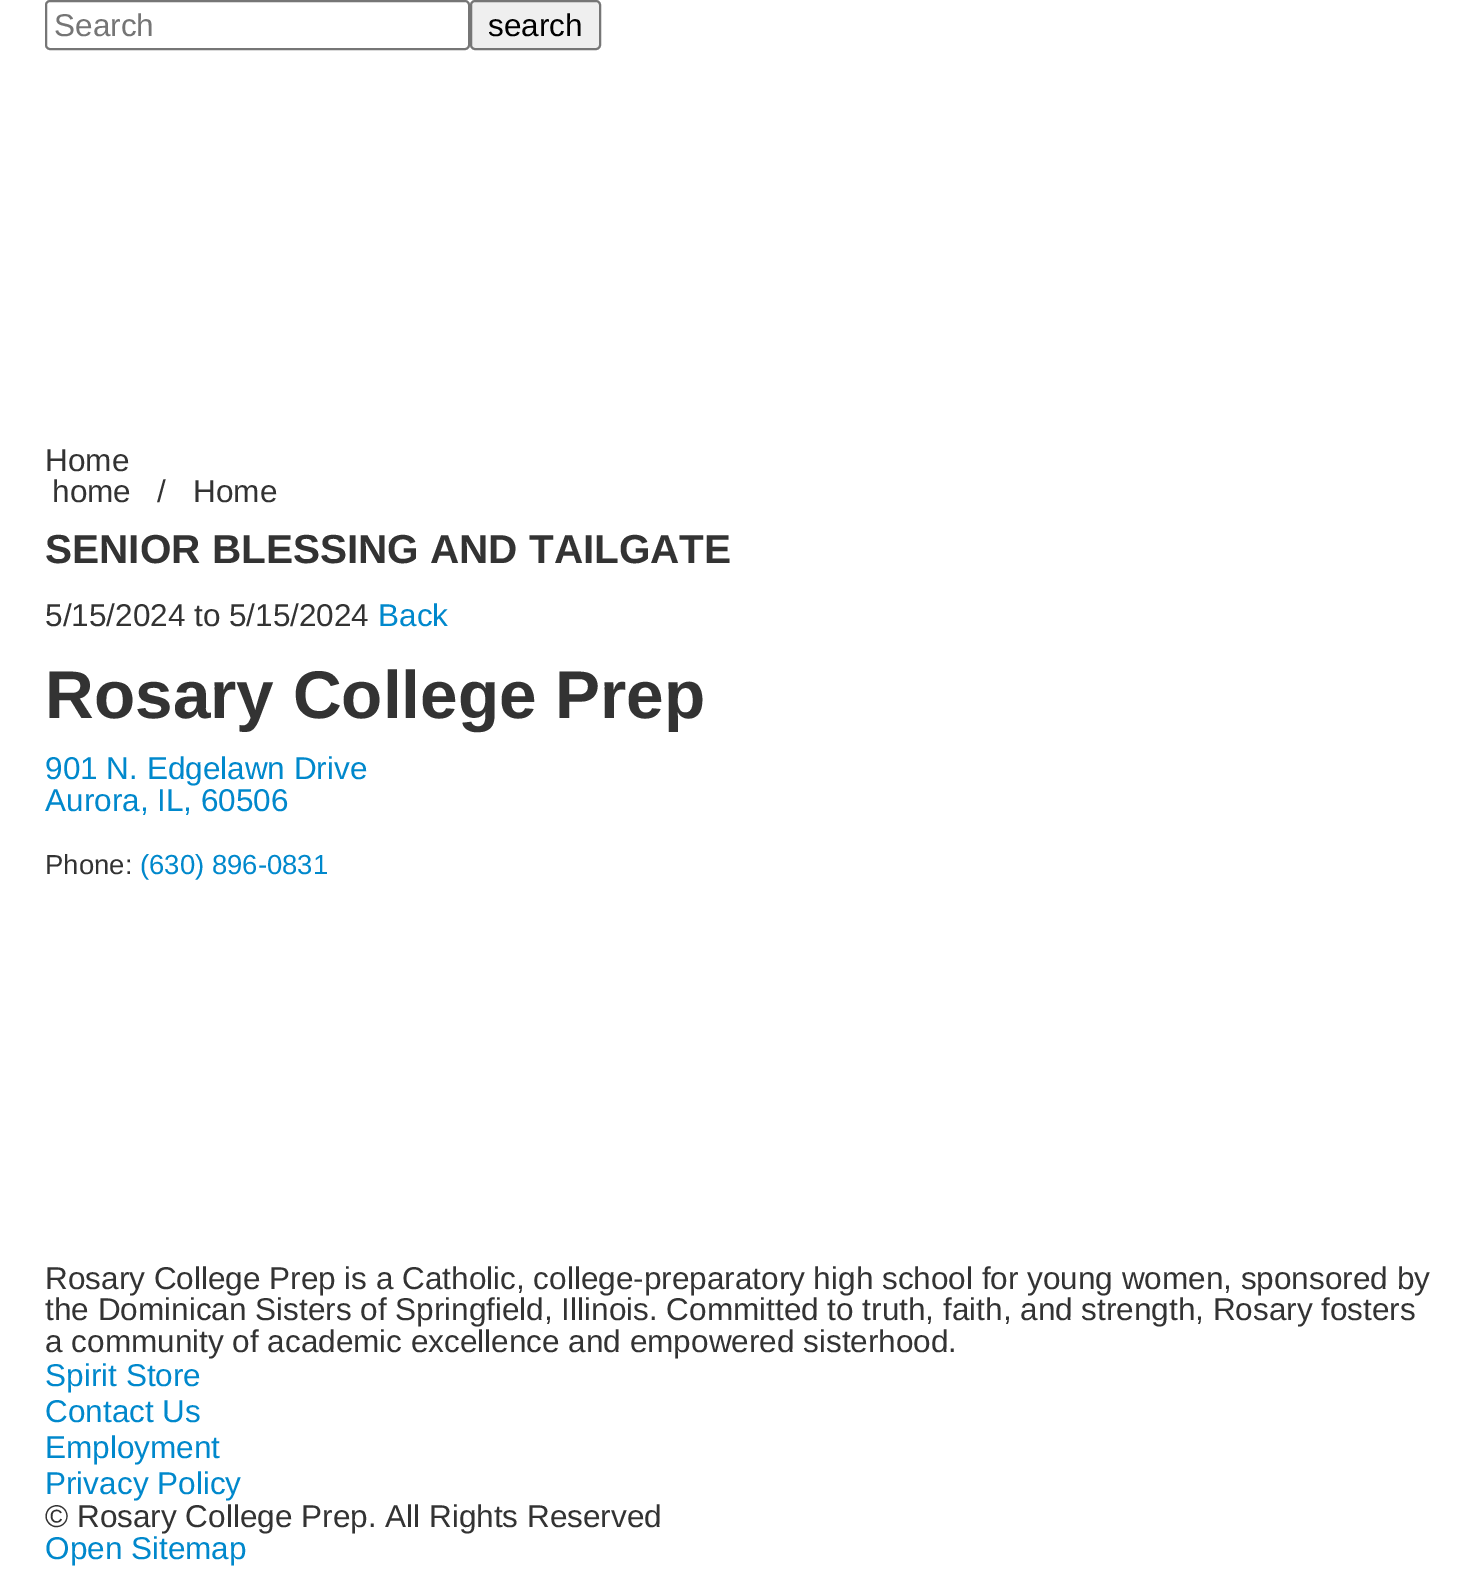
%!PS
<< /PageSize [1478 1578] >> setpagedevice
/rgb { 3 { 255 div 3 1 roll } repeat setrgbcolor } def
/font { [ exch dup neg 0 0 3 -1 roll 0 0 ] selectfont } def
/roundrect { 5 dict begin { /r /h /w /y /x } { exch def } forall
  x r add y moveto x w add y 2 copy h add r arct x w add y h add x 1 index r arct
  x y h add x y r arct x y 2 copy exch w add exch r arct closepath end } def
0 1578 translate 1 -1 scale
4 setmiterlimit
255 255 255 rgb
0 0 1478 1578 rectfill
118 118 118 rgb
2 setlinewidth
46 1 423 48 4 roundrect stroke
239 239 239 rgb
471 1 129 48 4 roundrect gsave fill grestore
118 118 118 rgb
stroke
/LiberationSans-Regular 31.5 font
117 117 117 rgb
54 36 moveto (Search) show
0 0 0 rgb
488 36 moveto (search) show
51 51 51 rgb
[
  [(Home) 45 471]
  [(home) 52 502]
  [(/) 157 502]
  [(Home) 193 502]
] { aload pop moveto show } forall
/LiberationSans-Bold 40.5 font
45 563 moveto (SENIOR BLESSING AND TAILGATE) show
/LiberationSans-Regular 31.5 font
45 626 moveto (5/15/2024 to 5/15/2024) show
0 136 204 rgb
378 626 moveto (Back) show
/LiberationSans-Bold 67.5 font
51 51 51 rgb
45 718 moveto (Rosary College Prep) show
/LiberationSans-Regular 31.5 font
0 136 204 rgb
45 779 moveto (901 N. Edgelawn Drive) show
45 811 moveto (Aurora, IL, 60506) show
/LiberationSans-Regular 27.5 font
51 51 51 rgb
45 874 moveto (Phone:) show
0 136 204 rgb
140 874 moveto (\(630\) 896-0831) show
/LiberationSans-Regular 31.5 font
51 51 51 rgb
[
  [(Rosary College Prep is a Catholic, college-preparatory high school for young women, sponsored by) 45 1289]
  [(the Dominican Sisters of Springfield, Illinois. Committed to truth, faith, and strength, Rosary fosters) 45 1320]
  [(a community of academic excellence and empowered sisterhood.) 45 1352]
] { aload pop moveto show } forall
0 136 204 rgb
[
  [(Spirit Store) 45 1386]
  [(Contact Us) 45 1422]
  [(Employment) 45 1458]
  [(Privacy Policy) 45 1494]
] { aload pop moveto show } forall
51 51 51 rgb
45 1527 moveto (© Rosary College Prep. All Rights Reserved) show
0 136 204 rgb
45 1559 moveto (Open Sitemap) show
showpage
